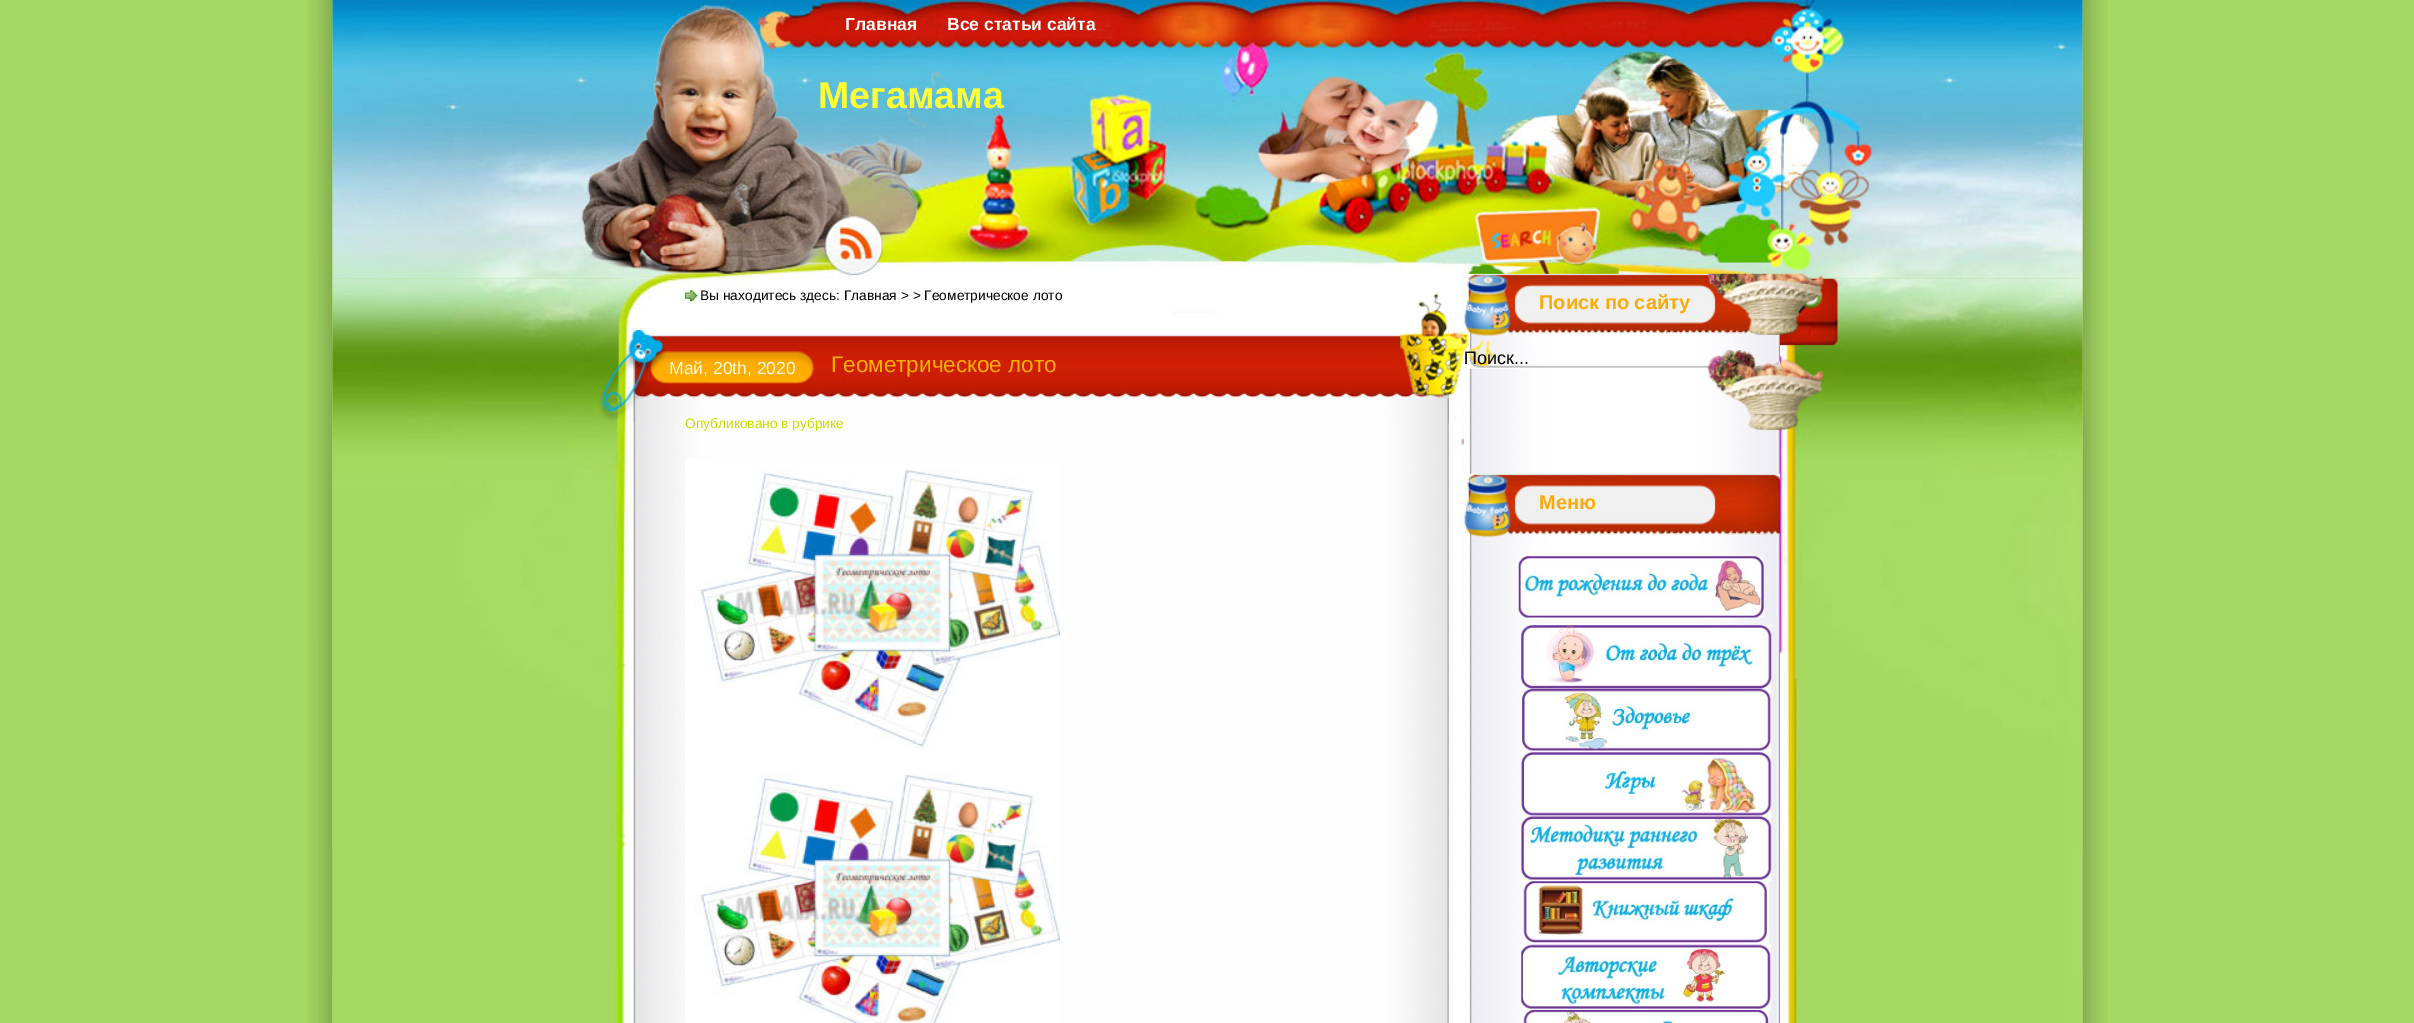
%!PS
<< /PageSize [2414 1023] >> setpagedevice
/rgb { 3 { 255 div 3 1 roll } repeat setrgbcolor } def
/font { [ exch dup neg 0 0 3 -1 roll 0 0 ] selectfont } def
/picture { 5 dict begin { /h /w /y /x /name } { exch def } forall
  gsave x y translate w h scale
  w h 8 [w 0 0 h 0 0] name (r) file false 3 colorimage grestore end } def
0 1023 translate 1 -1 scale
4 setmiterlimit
166 217 99 rgb
0 0 2414 1023 rectfill
(img/1.rgb) 307 0 1801 1023 picture
(img/2.rgb) 332 0 1751 1023 picture
(img/3.rgb) 332 972 1751 51 picture
(img/4.rgb) 332 0 1751 279 picture
(img/5.rgb) 332 278 1751 573 picture
(img/6.rgb) 685 290 13 12 picture
(img/7.rgb) 633 330 816 693 picture
(img/8.rgb) 599 330 850 93 picture
(img/10.rgb) 685 459 375 305 picture
(img/11.rgb) 685 764 375 259 picture
(img/12.rgb) 1463 273 317 750 picture
(img/13.rgb) 1464 341 316 28 picture
(img/14.rgb) 1464 273 316 69 picture
(img/15.rgb) 1707 273 117 62 picture
(img/16.rgb) 1707 350 117 80 picture
(img/17.rgb) 1464 473 316 70 picture
(img/18.rgb) 1518 556 246 62 picture
(img/19.rgb) 1521 625 251 64 picture
(img/20.rgb) 1522 688 250 64 picture
(img/21.rgb) 1521 751 251 66 picture
(img/22.rgb) 1521 816 251 66 picture
(img/23.rgb) 1523 881 246 63 picture
(img/24.rgb) 1521 943 251 67 picture
(img/25.rgb) 1523 1010 246 13 picture
/LiberationSans-Bold 17.5 font
255 255 255 rgb
845 30 moveto (Главная) show
947 30 moveto (Все статьи сайта) show
/LiberationSans-Bold 37.5 font
255 255 53 rgb
818 108 moveto (Мегамама) show
/LiberationSans-Regular 13.75 font
0 0 0 rgb
700 300 moveto (Вы находитесь здесь: Главная > > Геометрическое лото) show
/LiberationSans-Regular 17.5 font
248 248 220 rgb
669 374 moveto (Май, 20th, 2020) show
/LiberationSans-Regular 22.5 font
255 173 1 rgb
831 372 moveto (Геометрическое лото) show
/LiberationSans-Regular 13.75 font
200 220 0 rgb
685 428 moveto (Опубликовано в рубрике) show
/LiberationSans-Bold 20 font
249 172 8 rgb
1539 309 moveto (Поиск по сайту) show
/LiberationSans-Regular 18 font
0 0 0 rgb
1464 364 moveto (Поиск...) show
(img/9.rgb) 1400 293 69 104 picture
/LiberationSans-Bold 20 font
249 172 8 rgb
1539 509 moveto (Меню) show
showpage
